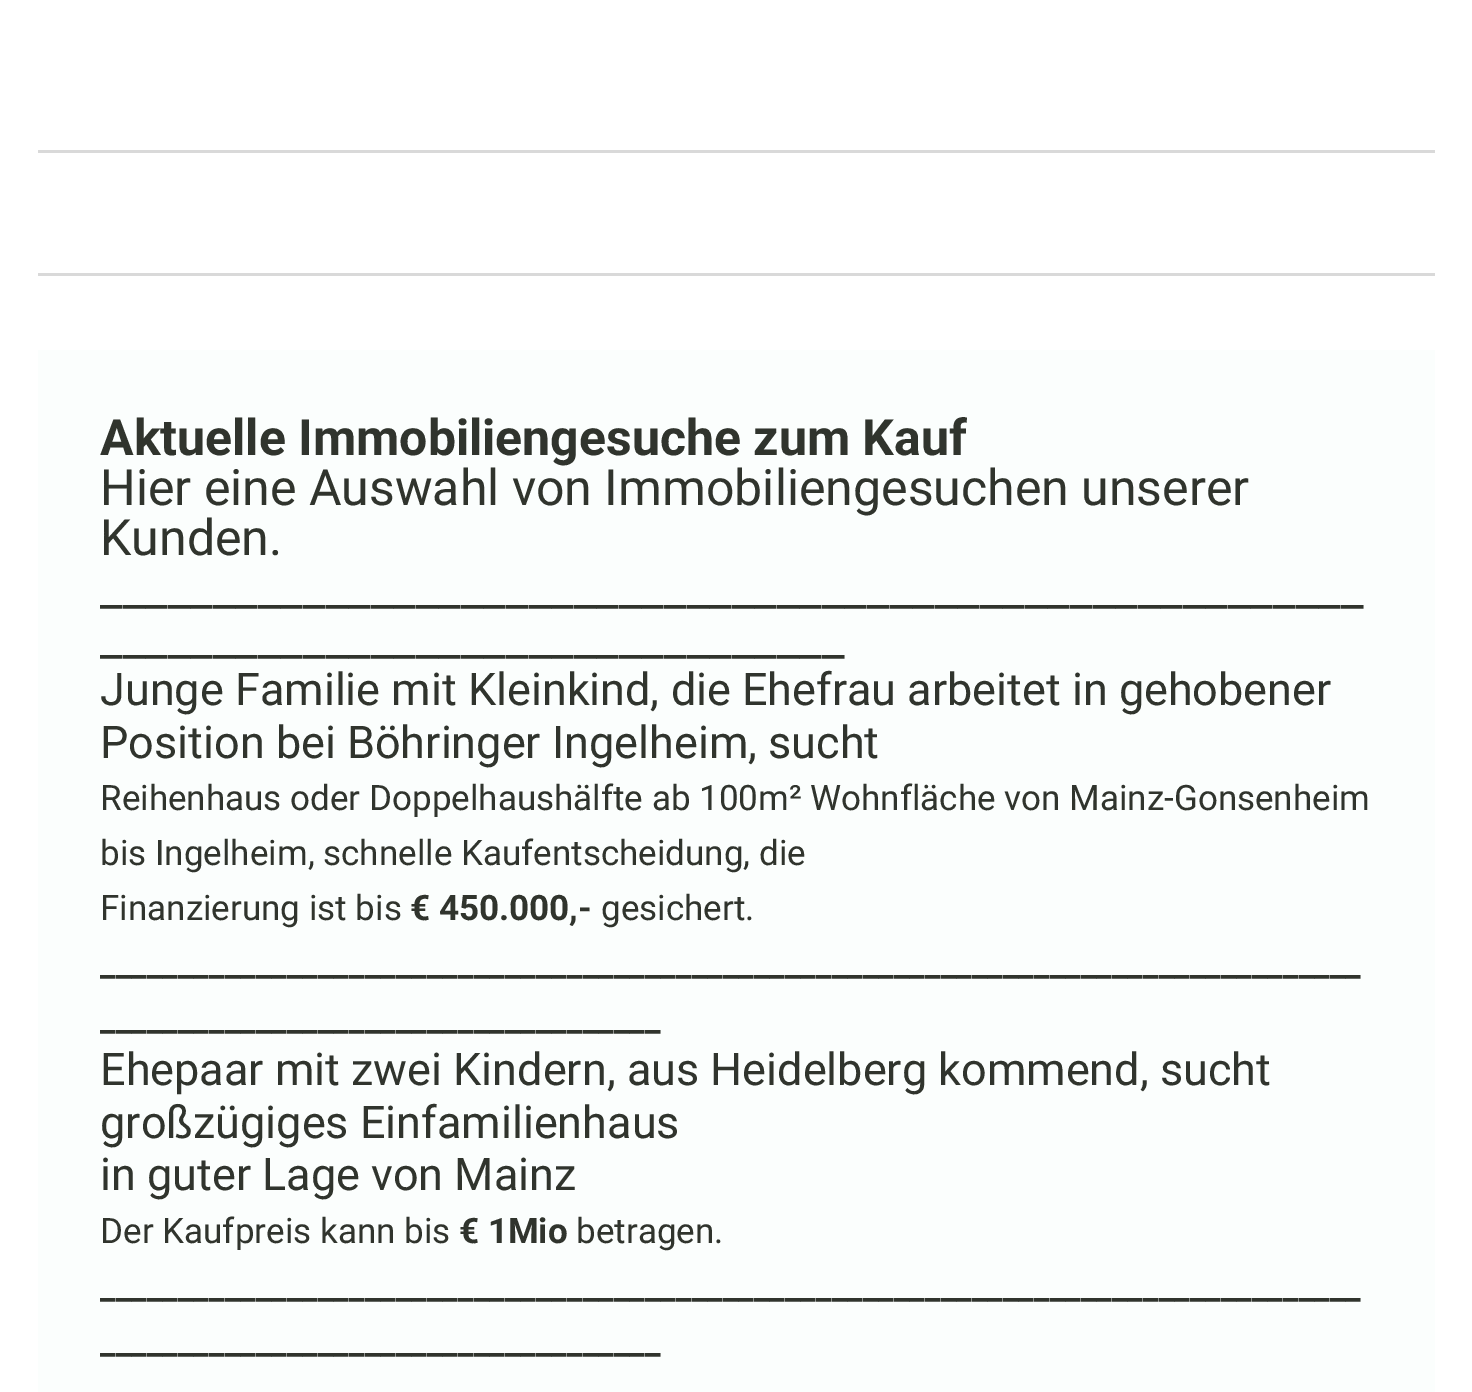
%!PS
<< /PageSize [1472 1392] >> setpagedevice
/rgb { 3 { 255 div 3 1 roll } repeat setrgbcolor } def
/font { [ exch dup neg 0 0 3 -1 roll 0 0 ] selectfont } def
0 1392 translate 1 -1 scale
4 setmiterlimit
255 255 255 rgb
0 0 1472 1392 rectfill
[
  [38 150 1397 3 217 217 217]
  [38 273 1397 3 217 217 217]
  [38 350 1397 1042 251 254 253]
] { aload pop rgb rectfill } forall
/Roboto-Bold 50 font
48 52 45 rgb
100 455 moveto (Aktuelle Immobiliengesuche zum Kauf) show
/Roboto-Regular 50 font
[
  [(Hier eine Auswahl von Immobiliengesuchen unserer) 100 505]
  [(Kunden.) 100 555]
  [(________________________________________________________) 100 605]
  [(_________________________________) 100 655]
] { aload pop moveto show } forall
/Roboto-Regular 45 font
100 705 moveto (Junge Familie mit Kleinkind, die Ehefrau arbeitet in gehobener) show
100 758 moveto (Position bei Böhringer Ingelheim, sucht) show
/Roboto-Regular 35 font
[
  [(Reihenhaus oder Doppelhaushälfte ab 100m² Wohnfläche von Mainz-Gonsenheim) 100 810]
  [(bis Ingelheim, schnelle Kaufentscheidung, die) 100 865]
  [(Finanzierung ist bis) 100 920]
] { aload pop moveto show } forall
/Roboto-Bold 35 font
410 920 moveto (€ 450.000,-) show
/Roboto-Regular 35 font
601 920 moveto (gesichert.) show
/Roboto-Bold 35 font
100 975 moveto (_________________________________________________________________________________) show
100 1030 moveto (____________________________________) show
/Roboto-Regular 45 font
[
  [(Ehepaar mit zwei Kindern, aus Heidelberg kommend, sucht) 100 1085]
  [(großzügiges Einfamilienhaus) 100 1138]
  [(in guter Lage von Mainz) 100 1190]
] { aload pop moveto show } forall
/Roboto-Regular 35 font
100 1243 moveto (Der Kaufpreis kann bis) show
/Roboto-Bold 35 font
459 1243 moveto (€ 1Mio) show
/Roboto-Regular 35 font
576 1243 moveto (betragen.) show
/Roboto-Bold 35 font
100 1298 moveto (_________________________________________________________________________________) show
100 1353 moveto (____________________________________) show
showpage
